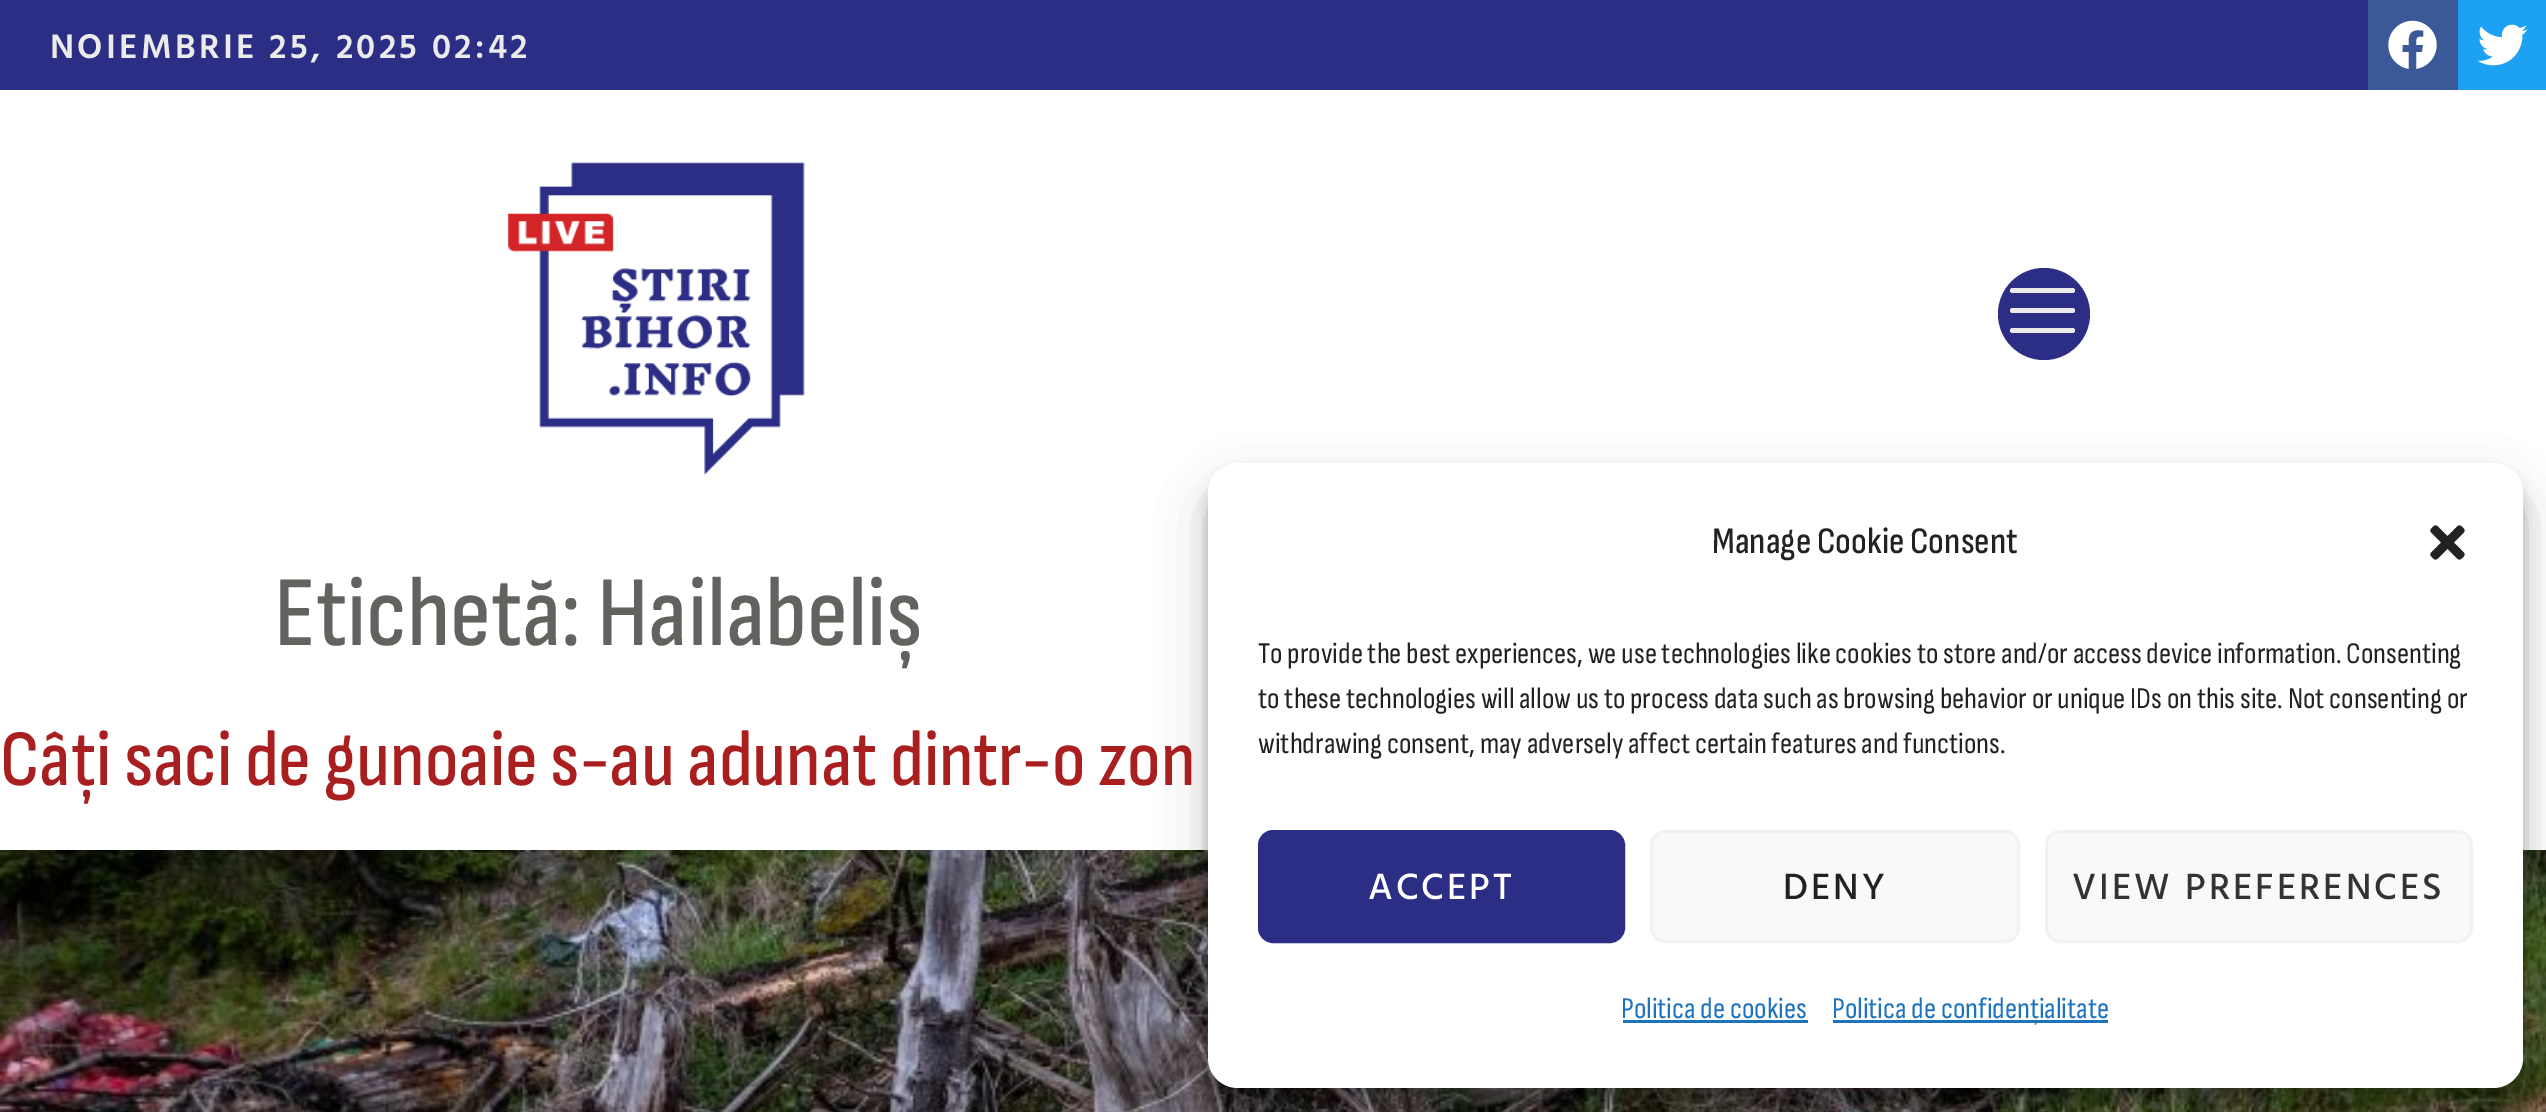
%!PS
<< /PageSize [2546 1112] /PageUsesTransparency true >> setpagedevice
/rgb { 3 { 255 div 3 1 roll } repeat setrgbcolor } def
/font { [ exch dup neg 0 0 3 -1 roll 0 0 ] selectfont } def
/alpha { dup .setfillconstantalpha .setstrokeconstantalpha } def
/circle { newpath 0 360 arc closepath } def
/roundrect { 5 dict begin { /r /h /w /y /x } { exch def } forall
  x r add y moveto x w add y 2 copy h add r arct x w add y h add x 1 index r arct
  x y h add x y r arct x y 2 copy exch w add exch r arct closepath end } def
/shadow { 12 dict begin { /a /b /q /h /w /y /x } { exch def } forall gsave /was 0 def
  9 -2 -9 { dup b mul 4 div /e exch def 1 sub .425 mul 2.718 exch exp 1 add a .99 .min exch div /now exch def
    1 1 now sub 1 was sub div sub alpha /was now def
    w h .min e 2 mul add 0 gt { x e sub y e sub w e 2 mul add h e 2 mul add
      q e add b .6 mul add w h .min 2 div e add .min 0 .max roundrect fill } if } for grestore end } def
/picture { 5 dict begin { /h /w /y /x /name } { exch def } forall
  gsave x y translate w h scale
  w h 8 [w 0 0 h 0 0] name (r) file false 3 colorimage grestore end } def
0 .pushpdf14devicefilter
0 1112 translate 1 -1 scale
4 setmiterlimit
255 255 255 rgb
0 0 2546 1112 rectfill
43 46 132 rgb
0 0 2368 90 rectfill
59 89 152 rgb
2368 0 90 90 rectfill
(img/1.rgb) 2388 20 49 49 picture
29 161 242 rgb
2458 0 88 90 rectfill
(img/2.rgb) 2478 24 50 42 picture
(img/3.rgb) 508 161 297 314 picture
43 46 132 rgb
2044 314 46 circle fill
235 235 235 rgb
2010 308 65 5 2.5 roundrect fill
2010 288 65 5 2.5 roundrect fill
2010 328 65 5 2.5 roundrect fill
(img/4.rgb) 0 850 2546 262 picture
0 0 0 rgb
1208 478 1315 625 30 7.5 0.23 shadow
1208 488 1315 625 30 25 0.19 shadow
255 255 255 rgb
1208 463 1315 625 30 roundrect fill
(img/5.rgb) 2430 525 35 35 picture
43 46 132 rgb
1259.5 831.5 364 110 13.5 roundrect gsave fill grestore
3 setlinewidth
stroke
249 249 249 rgb
1651.5 831.5 367 110 13.5 roundrect gsave fill grestore
242 242 242 rgb
stroke
249 249 249 rgb
2046.5 831.5 425 110 13.5 roundrect gsave fill grestore
242 242 242 rgb
stroke
30 115 190 rgb
1623 1020 185 3 rectfill
1833 1020 275 3 rectfill
/HindVadodara-SemiBold 35 font
235 235 235 rgb
50 58 moveto 3.25 0 (NOIEMBRIE 25, 2025 02:42) ashow
/SofiaSansCondensed-Medium 100 font
98 98 95 rgb
274 645 moveto (Etichetă: Hailabeliș) show
/SofiaSansCondensed-Medium 80 font
169 30 31 rgb
0 785 moveto (Câți saci de gunoaie s-au adunat dintr-o zon) show
/SofiaSansCondensed-Medium 37.5 font
34 34 34 rgb
1712 553 moveto (Manage Cookie Consent) show
/SofiaSansCondensed-Regular 30 font
[
  [(To provide the best experiences, we use technologies like cookies to store and/or access device information. Consenting) 1258 663]
  [(to these technologies will allow us to process data such as browsing behavior or unique IDs on this site. Not consenting or) 1258 708]
  [(withdrawing consent, may adversely affect certain features and functions.) 1258 753]
] { aload pop moveto show } forall
/HindVadodara-Medium 37.5 font
255 255 255 rgb
1368 899 moveto 3 0 (ACCEPT) ashow
34 34 34 rgb
1783 899 moveto 3 0 (DENY) ashow
51 51 51 rgb
2072 899 moveto 3 0 (VIEW PREFERENCES) ashow
/SofiaSansCondensed-Regular 30 font
30 115 190 rgb
1621 1018 moveto (Politica de cookies) show
1832 1018 moveto (Politica de confidențialitate) show
.poppdf14devicefilter showpage
